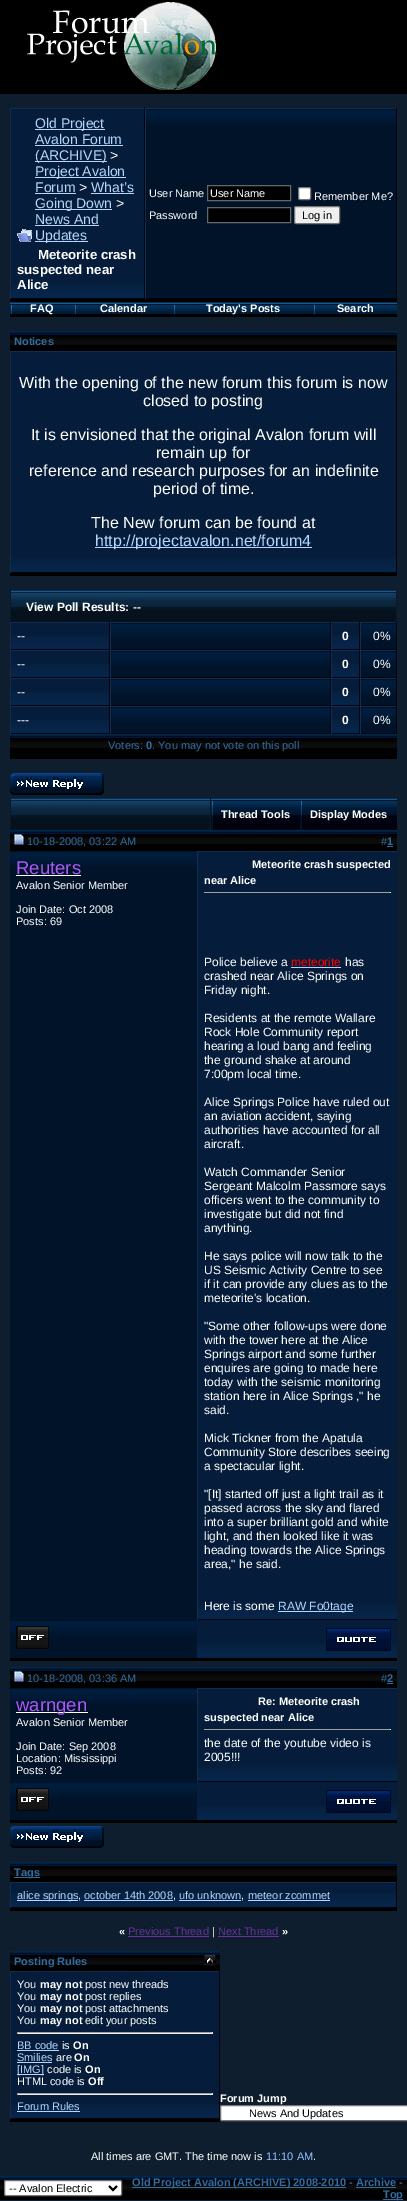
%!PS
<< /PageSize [407 2201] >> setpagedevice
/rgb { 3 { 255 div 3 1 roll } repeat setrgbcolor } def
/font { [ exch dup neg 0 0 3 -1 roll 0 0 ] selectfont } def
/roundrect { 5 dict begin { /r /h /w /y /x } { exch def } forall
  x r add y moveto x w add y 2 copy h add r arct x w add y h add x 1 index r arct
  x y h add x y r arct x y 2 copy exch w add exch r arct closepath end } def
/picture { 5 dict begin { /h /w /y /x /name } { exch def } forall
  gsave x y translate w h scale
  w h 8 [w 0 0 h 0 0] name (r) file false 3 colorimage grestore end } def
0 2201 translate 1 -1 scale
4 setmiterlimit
15 30 46 rgb
0 0 407 2201 rectfill
0 0 0 rgb
0 0 407 94 rectfill
(img/1.rgb) 27 2 190 88 picture
10 299 387 3 rectfill
5 29 58 rgb
11 109 133 175 rectfill
(img/2.rgb) 11 284 133 14 picture
[
  [10 108 387 1 17 44 76]
  [144 108 1 191 3 4 16]
  [10 298 135 1 3 4 16]
  [10 108 1 191 17 44 76]
] { aload pop rgb rectfill } forall
(img/3.rgb) 17 229 15 13 picture
[
  [35 129 70 1 180 214 255]
  [35 145 88 1 180 214 255]
  [35 161 72 1 180 214 255]
  [35 177 91 1 180 214 255]
  [35 193 41 1 180 214 255]
  [91 193 43 1 180 214 255]
  [35 209 77 1 180 214 255]
  [35 225 64 1 180 214 255]
  [35 241 53 1 180 214 255]
  [146 109 250 189 0 19 40]
] { aload pop rgb rectfill } forall
(img/4.rgb) 146 110 250 15 picture
[
  [396 108 1 191 3 4 16]
  [145 298 252 1 3 4 16]
  [145 108 1 191 17 44 76]
] { aload pop rgb rectfill } forall
0 0 0 rgb
207.5 185.5 moveto 290.5 185.5 lineto 290.5 200.5 lineto 207.5 200.5 lineto closepath gsave fill grestore
102 102 102 rgb
stroke
255 255 255 rgb
298.5 187.5 12 12 1.5 roundrect gsave fill grestore
118 118 118 rgb
stroke
0 0 0 rgb
207.5 207.5 moveto 290.5 207.5 lineto 290.5 222.5 lineto 207.5 222.5 lineto closepath gsave fill grestore
102 102 102 rgb
stroke
239 239 239 rgb
294.5 206.5 45 17 1.5 roundrect gsave fill grestore
118 118 118 rgb
stroke
0 0 0 rgb
10 314 387 3 rectfill
(img/5.rgb) 10 302 64 12 picture
(img/6.rgb) 74 302 99 12 picture
(img/7.rgb) 173 302 140 12 picture
(img/8.rgb) 313 302 84 12 picture
10 573 387 3 rectfill
10 345 387 6 rectfill
(img/9.rgb) 10 331 387 14 picture
5 29 58 rgb
11 352 385 206 rectfill
(img/10.rgb) 11 558 385 14 picture
[
  [10 351 387 1 17 44 76]
  [396 351 1 222 3 4 16]
  [10 572 387 1 3 4 16]
  [10 351 1 222 17 44 76]
  [95 547 217 1 180 214 255]
  [10 748 387 11 0 0 0]
  [11 610 385 12 5 18 29]
] { aload pop rgb rectfill } forall
(img/11.rgb) 11 590 385 20 picture
[
  [396 590 1 32 7 26 43]
  [10 590 1 32 7 26 43]
  [11 623 98 12 5 29 58]
] { aload pop rgb rectfill } forall
(img/12.rgb) 11 635 98 14 picture
[
  [10 622 387 1 17 44 76]
  [109 622 1 28 3 4 16]
  [10 649 100 1 3 4 16]
  [10 622 1 28 17 44 76]
  [111 623 219 26 0 19 40]
] { aload pop rgb rectfill } forall
(img/13.rgb) 111 624 219 15 picture
[
  [330 622 1 28 3 4 16]
  [110 649 221 1 3 4 16]
  [110 622 1 28 17 44 76]
  [332 623 27 12 5 29 58]
] { aload pop rgb rectfill } forall
(img/14.rgb) 332 635 27 14 picture
[
  [359 622 1 28 3 4 16]
  [331 649 29 1 3 4 16]
  [331 622 1 28 17 44 76]
  [361 623 35 26 0 19 40]
] { aload pop rgb rectfill } forall
(img/15.rgb) 361 624 35 15 picture
[
  [396 622 1 28 3 4 16]
  [360 649 37 1 3 4 16]
  [360 622 1 28 17 44 76]
  [11 651 98 12 5 29 58]
] { aload pop rgb rectfill } forall
(img/12.rgb) 11 663 98 14 picture
[
  [10 650 387 1 17 44 76]
  [109 650 1 28 3 4 16]
  [10 677 100 1 3 4 16]
  [10 650 1 28 17 44 76]
  [111 651 219 26 0 19 40]
] { aload pop rgb rectfill } forall
(img/13.rgb) 111 652 219 15 picture
[
  [330 650 1 28 3 4 16]
  [110 677 221 1 3 4 16]
  [110 650 1 28 17 44 76]
  [332 651 27 12 5 29 58]
] { aload pop rgb rectfill } forall
(img/14.rgb) 332 663 27 14 picture
[
  [359 650 1 28 3 4 16]
  [331 677 29 1 3 4 16]
  [331 650 1 28 17 44 76]
  [361 651 35 26 0 19 40]
] { aload pop rgb rectfill } forall
(img/15.rgb) 361 652 35 15 picture
[
  [396 650 1 28 3 4 16]
  [360 677 37 1 3 4 16]
  [360 650 1 28 17 44 76]
  [11 679 98 12 5 29 58]
] { aload pop rgb rectfill } forall
(img/12.rgb) 11 691 98 14 picture
[
  [10 678 387 1 17 44 76]
  [109 678 1 28 3 4 16]
  [10 705 100 1 3 4 16]
  [10 678 1 28 17 44 76]
  [111 679 219 26 0 19 40]
] { aload pop rgb rectfill } forall
(img/13.rgb) 111 680 219 15 picture
[
  [330 678 1 28 3 4 16]
  [110 705 221 1 3 4 16]
  [110 678 1 28 17 44 76]
  [332 679 27 12 5 29 58]
] { aload pop rgb rectfill } forall
(img/14.rgb) 332 691 27 14 picture
[
  [359 678 1 28 3 4 16]
  [331 705 29 1 3 4 16]
  [331 678 1 28 17 44 76]
  [361 679 35 26 0 19 40]
] { aload pop rgb rectfill } forall
(img/15.rgb) 361 680 35 15 picture
[
  [396 678 1 28 3 4 16]
  [360 705 37 1 3 4 16]
  [360 678 1 28 17 44 76]
  [11 707 98 12 5 29 58]
] { aload pop rgb rectfill } forall
(img/12.rgb) 11 719 98 14 picture
[
  [10 706 387 1 17 44 76]
  [109 706 1 28 3 4 16]
  [10 733 100 1 3 4 16]
  [10 706 1 28 17 44 76]
  [111 707 219 26 0 19 40]
] { aload pop rgb rectfill } forall
(img/13.rgb) 111 708 219 15 picture
[
  [330 706 1 28 3 4 16]
  [110 733 221 1 3 4 16]
  [110 706 1 28 17 44 76]
  [332 707 27 12 5 29 58]
] { aload pop rgb rectfill } forall
(img/14.rgb) 332 719 27 14 picture
[
  [359 706 1 28 3 4 16]
  [331 733 29 1 3 4 16]
  [331 706 1 28 17 44 76]
  [361 707 35 26 0 19 40]
] { aload pop rgb rectfill } forall
(img/15.rgb) 361 708 35 15 picture
[
  [396 706 1 28 3 4 16]
  [360 733 37 1 3 4 16]
  [360 706 1 28 17 44 76]
] { aload pop rgb rectfill } forall
(img/9.rgb) 10 734 387 14 picture
(img/16.rgb) 10 773 94 22 picture
5 18 29 rgb
11 818 199 12 rectfill
(img/17.rgb) 11 798 199 20 picture
7 26 43 rgb
210 798 1 32 rectfill
10 798 1 32 rectfill
(img/18.rgb) 211 798 89 32 picture
(img/19.rgb) 300 798 97 32 picture
[
  [198 851 199 1 17 44 76]
  [10 1658 387 3 0 0 0]
  [10 844 387 7 0 0 0]
] { aload pop rgb rectfill } forall
(img/20.rgb) 10 830 187 14 picture
(img/21.rgb) 14 834 10 11 picture
(img/22.rgb) 197 830 200 14 picture
49 107 159 rgb
387 846 6 1 rectfill
0 19 40 rgb
10 851 187 807 rectfill
(img/23.rgb) 10 852 187 15 picture
255 255 255 rgb
16 875 65 1 rectfill
5 29 58 rgb
198 852 199 707 rectfill
(img/24.rgb) 198 1559 199 60 picture
[
  [197 1619 200 1 3 4 16]
  [197 851 1 769 17 44 76]
  [204 892 187 1 159 159 159]
  [390 892 1 1 238 238 238]
  [291 967 50 1 180 214 255]
  [278 1611 75 1 180 214 255]
] { aload pop rgb rectfill } forall
(img/23.rgb) 10 1621 187 15 picture
(img/25.rgb) 16 1626 33 23 picture
5 29 58 rgb
197 1620 200 24 rectfill
(img/26.rgb) 197 1644 200 14 picture
(img/27.rgb) 326 1628 65 23 picture
[
  [198 1688 199 1 17 44 76]
  [10 1820 387 3 0 0 0]
  [10 1681 387 7 0 0 0]
] { aload pop rgb rectfill } forall
(img/20.rgb) 10 1667 187 14 picture
(img/21.rgb) 14 1671 10 11 picture
(img/22.rgb) 197 1667 200 14 picture
49 107 159 rgb
387 1683 6 1 rectfill
0 19 40 rgb
10 1688 187 132 rectfill
(img/23.rgb) 10 1689 187 15 picture
255 255 255 rgb
16 1712 72 1 rectfill
5 29 58 rgb
198 1689 199 32 rectfill
(img/24.rgb) 198 1721 199 60 picture
[
  [197 1781 200 1 3 4 16]
  [197 1688 1 94 17 44 76]
  [204 1729 187 1 159 159 159]
  [390 1729 1 1 238 238 238]
] { aload pop rgb rectfill } forall
(img/23.rgb) 10 1783 187 15 picture
(img/25.rgb) 16 1788 33 23 picture
5 29 58 rgb
197 1782 200 24 rectfill
(img/26.rgb) 197 1806 200 14 picture
(img/27.rgb) 326 1790 65 23 picture
(img/16.rgb) 10 1826 94 22 picture
0 0 0 rgb
10 1908 387 3 rectfill
10 1876 387 6 rectfill
(img/9.rgb) 10 1862 387 14 picture
49 107 159 rgb
14 1877 26 1 rectfill
5 29 58 rgb
11 1883 385 10 rectfill
(img/10.rgb) 11 1893 385 14 picture
[
  [10 1882 387 1 17 44 76]
  [396 1882 1 26 3 4 16]
  [10 1907 387 1 3 4 16]
  [10 1882 1 26 17 44 76]
  [17 1900 61 1 180 214 255]
  [84 1900 89 1 180 214 255]
  [179 1900 62 1 180 214 255]
  [248 1900 82 1 180 214 255]
  [128 1936 81 1 102 51 153]
  [218 1936 61 1 102 51 153]
  [10 2119 210 3 0 0 0]
  [10 1965 210 6 0 0 0]
] { aload pop rgb rectfill } forall
(img/28.rgb) 10 1951 210 14 picture
(img/29.rgb) 204 1955 12 11 picture
5 29 58 rgb
11 1972 208 132 rectfill
(img/30.rgb) 11 2104 208 14 picture
[
  [10 1971 210 1 17 44 76]
  [219 1971 1 148 3 4 16]
  [10 2118 210 1 3 4 16]
  [10 1971 1 148 17 44 76]
  [17 2032 196 1 159 159 159]
  [212 2032 1 2 238 238 238]
  [17 2033 196 1 238 238 238]
  [17 2032 1 2 159 159 159]
  [17 2050 42 1 180 214 255]
  [17 2062 35 1 180 214 255]
  [17 2074 27 1 180 214 255]
  [17 2093 196 1 159 159 159]
  [212 2093 1 2 238 238 238]
  [17 2094 196 1 238 238 238]
  [17 2093 1 2 159 159 159]
  [17 2111 63 1 180 214 255]
] { aload pop rgb rectfill } forall
255 255 255 rgb
220.5 2105.5 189 15 1.5 roundrect gsave fill grestore
118 118 118 rgb
stroke
0 0 0 rgb
0 2190 407 10 rectfill
(img/31.rgb) 0 2176 126 14 picture
255 255 255 rgb
4.5 2180.5 117 15 1.5 roundrect gsave fill grestore
118 118 118 rgb
stroke
0 0 0 rgb
2 setlinewidth
109 2186 moveto 113 2190 lineto 117 2186 lineto stroke
(img/32.rgb) 126 2176 281 14 picture
[
  [132 2187 214 1 49 107 159]
  [356 2187 40 1 49 107 159]
  [383 2199 20 1 49 107 159]
] { aload pop rgb rectfill } forall
/LiberationSans-Regular 14 font
180 214 255 rgb
[
  [(Old Project) 35 128]
  [(Avalon Forum) 35 144]
  [(\(ARCHIVE\)) 35 160]
] { aload pop moveto show } forall
255 255 255 rgb
110 160 moveto (>) show
180 214 255 rgb
35 176 moveto (Project Avalon) show
35 192 moveto (Forum) show
255 255 255 rgb
79 192 moveto (>) show
180 214 255 rgb
91 192 moveto (What’s) show
35 208 moveto (Going Down) show
255 255 255 rgb
116 208 moveto (>) show
180 214 255 rgb
35 224 moveto (News And) show
35 240 moveto (Updates) show
/LiberationSans-Bold 13.25 font
255 255 255 rgb
[
  [(Meteorite crash) 38 259]
  [(suspected near) 17 274]
  [(Alice) 17 289]
] { aload pop moveto show } forall
/LiberationSans-Regular 11 font
[
  [(User Name) 149 197]
  [(User Name) 210 197]
  [(Remember Me?) 314 200]
  [(Password) 149 219]
] { aload pop moveto show } forall
0 0 0 rgb
302 219 moveto (Log in) show
/LiberationSans-Bold 11 font
255 255 255 rgb
[
  [(FAQ) 30 312]
  [(Calendar) 100 312]
  [(Today's Posts) 206 312]
  [(Search) 337 312]
] { aload pop moveto show } forall
49 107 159 rgb
14 345 moveto (Notices) show
/LiberationSans-Regular 16 font
255 255 255 rgb
[
  [(With the opening of the new forum this forum is now) 19 388]
  [(closed to posting) 143 406]
  [(It is envisioned that the original Avalon forum will) 31 440]
  [(remain up for) 156 458]
  [(reference and research purposes for an indefinite) 29 476]
  [(period of time.) 153 494]
  [(The New forum can be found at) 91 528]
] { aload pop moveto show } forall
180 214 255 rgb
95 546 moveto (http://projectavalon.net/forum4) show
/LiberationSans-Bold 12 font
255 255 255 rgb
26 611 moveto (View Poll Results: --) show
/LiberationSans-Regular 12 font
17 640 moveto (--) show
/LiberationSans-Bold 12 font
342 640 moveto (0) show
/LiberationSans-Regular 12 font
373 640 moveto (0%) show
17 668 moveto (--) show
/LiberationSans-Bold 12 font
342 668 moveto (0) show
/LiberationSans-Regular 12 font
373 668 moveto (0%) show
17 696 moveto (--) show
/LiberationSans-Bold 12 font
342 696 moveto (0) show
/LiberationSans-Regular 12 font
373 696 moveto (0%) show
17 724 moveto (---) show
/LiberationSans-Bold 12 font
342 724 moveto (0) show
/LiberationSans-Regular 12 font
373 724 moveto (0%) show
/LiberationSans-Regular 11 font
49 107 159 rgb
108 749 moveto (Voters:) show
/LiberationSans-Bold 11 font
146 749 moveto (0) show
/LiberationSans-Regular 11 font
152 749 moveto (. You may not vote on this poll) show
/LiberationSans-Bold 11 font
255 255 255 rgb
221 818 moveto (Thread Tools) show
310 818 moveto (Display Modes) show
/LiberationSans-Regular 11 font
49 107 159 rgb
27 845 moveto (10-18-2008, 03:22 AM) show
381 845 moveto (#) show
/LiberationSans-Bold 11 font
387 845 moveto (1) show
/LiberationSans-Regular 18.5 font
172 88 250 rgb
16 874 moveto (Reuters) show
/LiberationSans-Regular 11 font
255 255 255 rgb
[
  [(Avalon Senior Member) 16 889]
  [(Join Date: Oct 2008) 16 913]
  [(Posts: 69) 16 925]
] { aload pop moveto show } forall
/LiberationSans-Bold 11 font
252 868 moveto (Meteorite crash suspected) show
204 884 moveto (near Alice) show
/LiberationSans-Regular 12 font
204 966 moveto (Police believe a) show
255 0 0 rgb
291 966 moveto (meteorite) show
255 255 255 rgb
[
  [(has) 345 966]
  [(crashed near Alice Springs on) 204 980]
  [(Friday night.) 204 994]
  [(Residents at the remote Wallare) 204 1022]
  [(Rock Hole Community report) 204 1036]
  [(hearing a loud bang and feeling) 204 1050]
  [(the ground shake at around) 204 1064]
  [(7:00pm local time.) 204 1078]
  [(Alice Springs Police have ruled out) 204 1106]
  [(an aviation accident, saying) 204 1120]
  [(authorities have accounted for all) 204 1134]
  [(aircraft.) 204 1148]
  [(Watch Commander Senior) 204 1176]
  [(Sergeant Malcolm Passmore says) 204 1190]
  [(officers went to the community to) 204 1204]
  [(investigate but did not find) 204 1218]
  [(anything.) 204 1232]
  [(He says police will now talk to the) 204 1260]
  [(US Seismic Activity Centre to see) 204 1274]
  [(if it can provide any clues as to the) 204 1288]
  [(meteorite's location.) 204 1302]
  [("Some other follow-ups were done) 204 1330]
  [(with the tower here at the Alice) 204 1344]
  [(Springs airport and some further) 204 1358]
  [(enquires are going to made here) 204 1372]
  [(today with the seismic monitoring) 204 1386]
  [(station here in Alice Springs ," he) 204 1400]
  [(said.) 204 1414]
  [(Mick Tickner from the Apatula) 204 1442]
  [(Community Store describes seeing) 204 1456]
  [(a spectacular light.) 204 1470]
  [("[It] started off just a light trail as it) 204 1498]
  [(passed across the sky and flared) 204 1512]
  [(into a super brilliant gold and white) 204 1526]
  [(light, and then looked like it was) 204 1540]
  [(heading towards the Alice Springs) 204 1554]
  [(area," he said.) 204 1568]
  [(Here is some) 204 1610]
] { aload pop moveto show } forall
180 214 255 rgb
278 1610 moveto (RAW Fo0tage) show
/LiberationSans-Regular 11 font
49 107 159 rgb
27 1682 moveto (10-18-2008, 03:36 AM) show
381 1682 moveto (#) show
/LiberationSans-Bold 11 font
387 1682 moveto (2) show
/LiberationSans-Regular 18.5 font
172 88 250 rgb
16 1711 moveto (warngen) show
/LiberationSans-Regular 11 font
255 255 255 rgb
[
  [(Avalon Senior Member) 16 1726]
  [(Join Date: Sep 2008) 16 1750]
  [(Location: Mississippi) 16 1762]
  [(Posts: 92) 16 1774]
] { aload pop moveto show } forall
/LiberationSans-Bold 11 font
258 1705 moveto (Re: Meteorite crash) show
204 1721 moveto (suspected near Alice) show
/LiberationSans-Regular 12 font
204 1747 moveto (the date of the youtube video is) show
204 1761 moveto (2005!!!) show
/LiberationSans-Bold 11 font
49 107 159 rgb
14 1876 moveto (Tags) show
/LiberationSans-Regular 11 font
180 214 255 rgb
17 1899 moveto (alice springs) show
255 255 255 rgb
78 1899 moveto (,) show
180 214 255 rgb
84 1899 moveto (october 14th 2008) show
255 255 255 rgb
173 1899 moveto (,) show
180 214 255 rgb
179 1899 moveto (ufo unknown) show
255 255 255 rgb
241 1899 moveto (,) show
180 214 255 rgb
248 1899 moveto (meteor zcommet) show
/LiberationSans-Bold 11 font
255 255 255 rgb
119 1935 moveto («) show
/LiberationSans-Regular 11 font
102 51 153 rgb
128 1935 moveto (Previous Thread) show
255 255 255 rgb
212 1935 moveto (|) show
102 51 153 rgb
218 1935 moveto (Next Thread) show
/LiberationSans-Bold 11 font
255 255 255 rgb
282 1935 moveto (») show
49 107 159 rgb
14 1965 moveto (Posting Rules) show
/LiberationSans-Regular 11 font
255 255 255 rgb
17 1988 moveto (You) show
/LiberationSans-Bold 11 font
40 1988 moveto (may not) show
/LiberationSans-Regular 11 font
85 1988 moveto (post new threads) show
17 2000 moveto (You) show
/LiberationSans-Bold 11 font
40 2000 moveto (may not) show
/LiberationSans-Regular 11 font
85 2000 moveto (post replies) show
17 2012 moveto (You) show
/LiberationSans-Bold 11 font
40 2012 moveto (may not) show
/LiberationSans-Regular 11 font
85 2012 moveto (post attachments) show
17 2024 moveto (You) show
/LiberationSans-Bold 11 font
40 2024 moveto (may not) show
/LiberationSans-Regular 11 font
85 2024 moveto (edit your posts) show
180 214 255 rgb
17 2049 moveto (BB code) show
255 255 255 rgb
62 2049 moveto (is) show
/LiberationSans-Bold 11 font
73 2049 moveto (On) show
/LiberationSans-Regular 11 font
180 214 255 rgb
17 2061 moveto (Smilies) show
255 255 255 rgb
56 2061 moveto (are) show
/LiberationSans-Bold 11 font
74 2061 moveto (On) show
/LiberationSans-Regular 11 font
180 214 255 rgb
17 2073 moveto ([IMG]) show
255 255 255 rgb
47 2073 moveto (code is) show
/LiberationSans-Bold 11 font
85 2073 moveto (On) show
/LiberationSans-Regular 11 font
17 2085 moveto (HTML code is) show
/LiberationSans-Bold 11 font
88 2085 moveto (Off) show
/LiberationSans-Regular 11 font
180 214 255 rgb
17 2110 moveto (Forum Rules) show
/LiberationSans-Bold 11 font
255 255 255 rgb
220 2102 moveto (Forum Jump) show
/LiberationSans-Regular 11 font
0 0 0 rgb
249 2117 moveto (News And Updates) show
255 255 255 rgb
91 2160 moveto (All times are GMT. The time now is) show
144 196 255 rgb
266 2160 moveto (11:10 AM) show
255 255 255 rgb
313 2160 moveto (.) show
0 0 0 rgb
9 2192 moveto (-- Avalon Electric) show
/LiberationSans-Bold 11 font
49 107 159 rgb
132 2186 moveto (Old Project Avalon \(ARCHIVE\) 2008-2010 - Archive -) show
383 2198 moveto (Top) show
showpage
